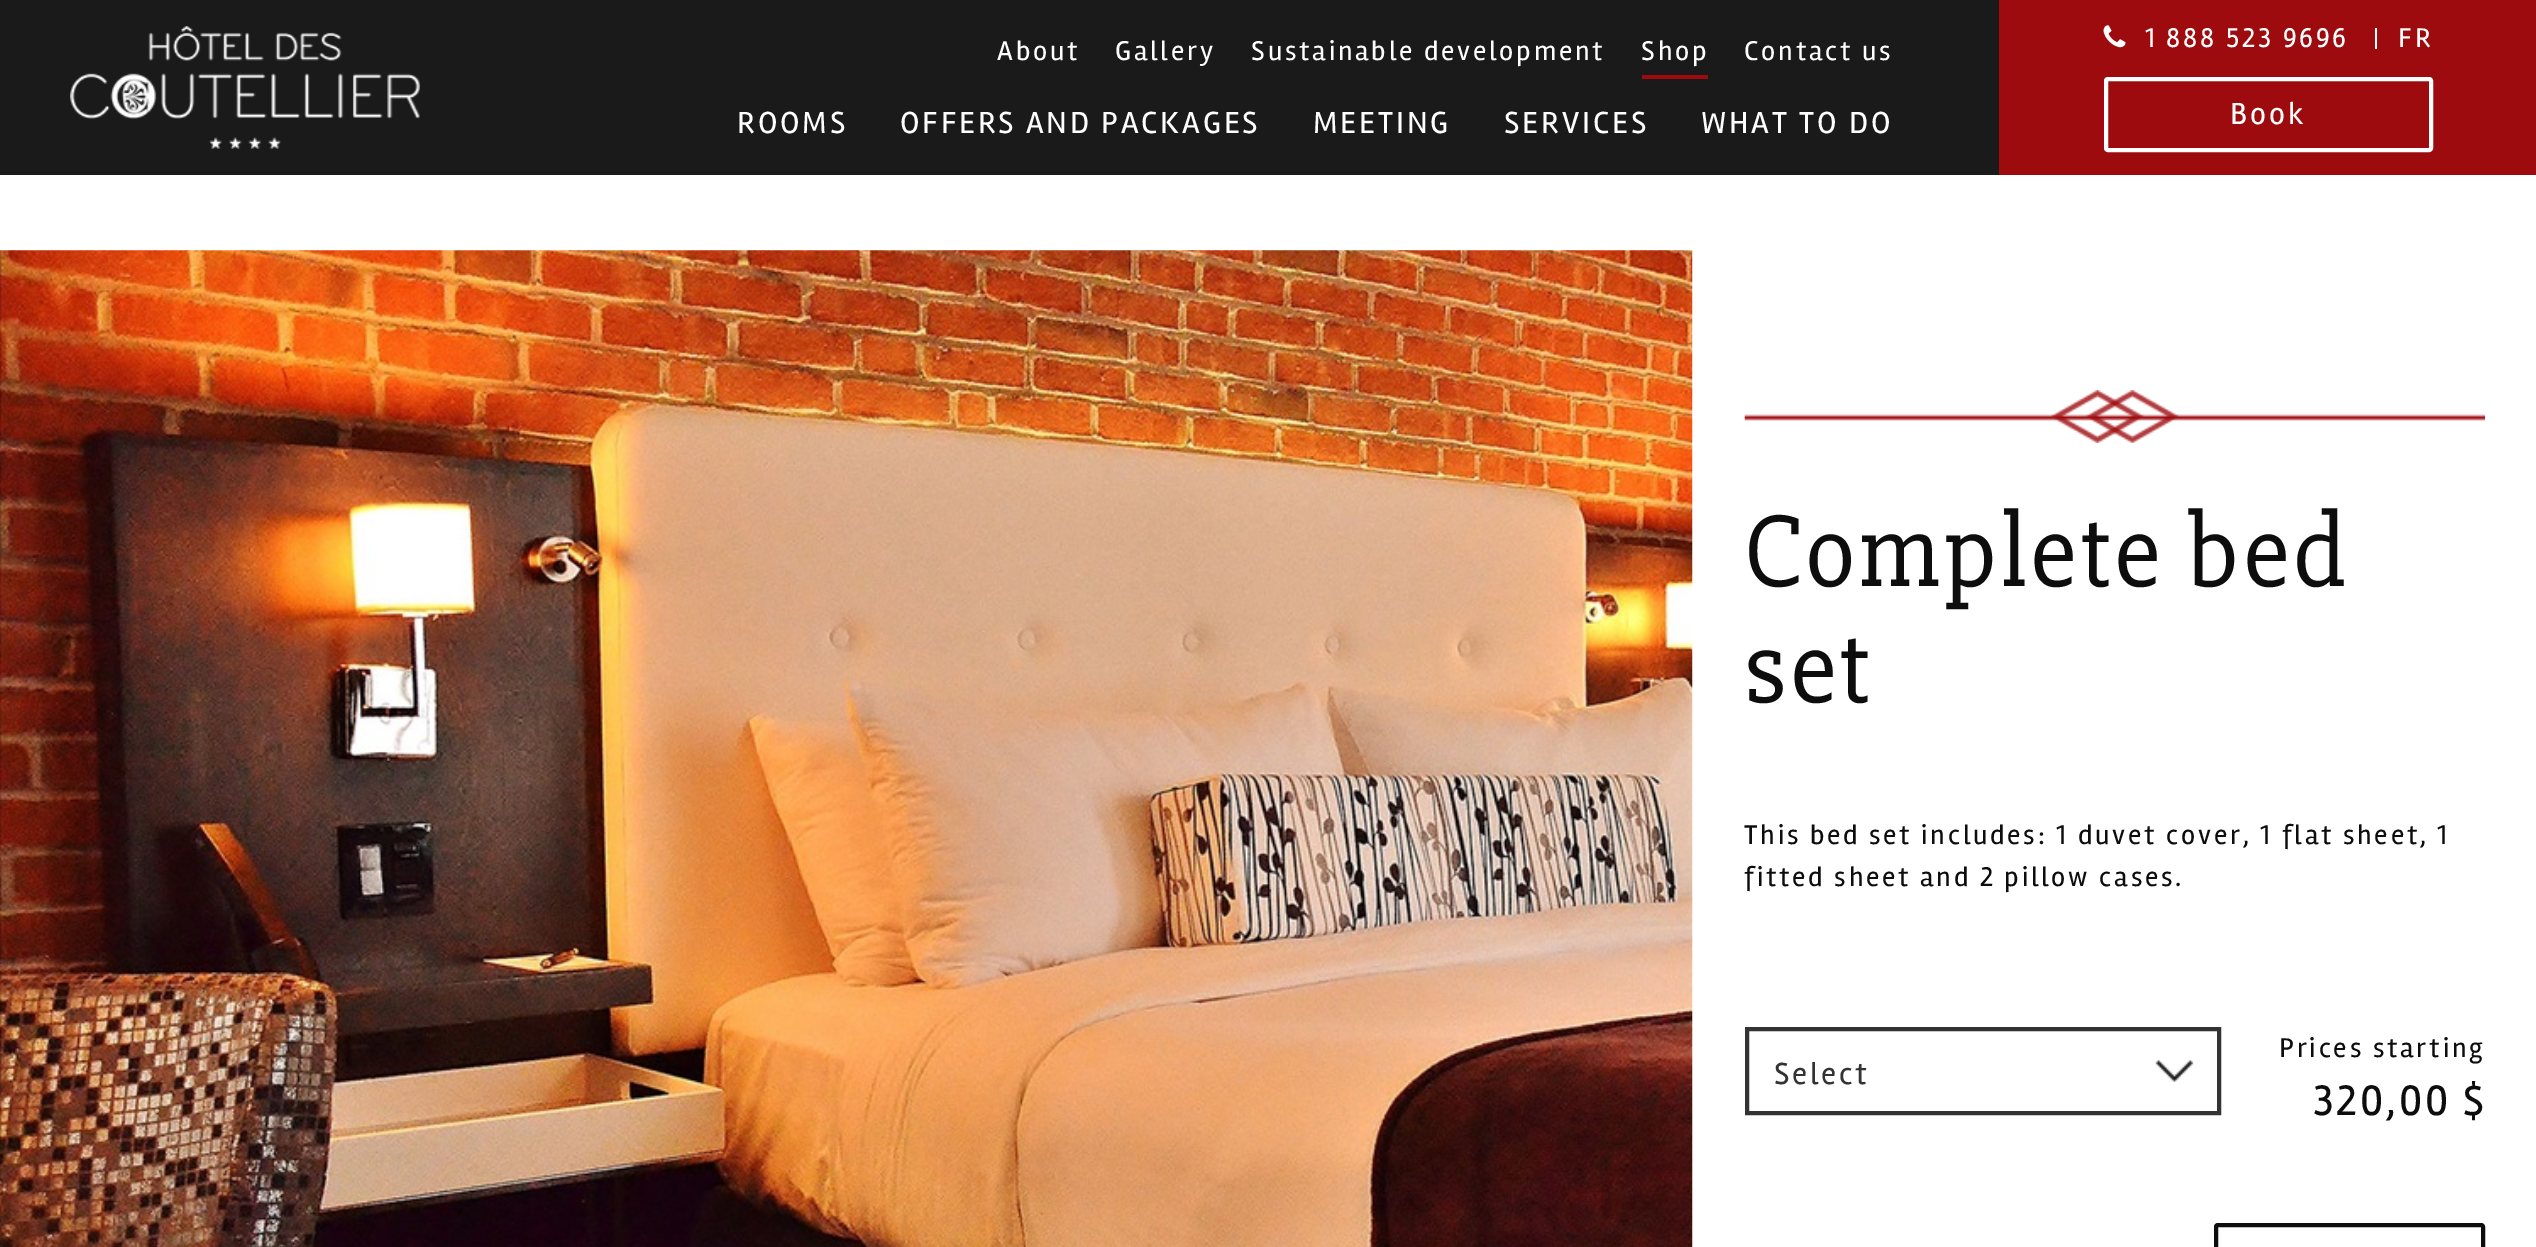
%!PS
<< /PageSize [2536 1247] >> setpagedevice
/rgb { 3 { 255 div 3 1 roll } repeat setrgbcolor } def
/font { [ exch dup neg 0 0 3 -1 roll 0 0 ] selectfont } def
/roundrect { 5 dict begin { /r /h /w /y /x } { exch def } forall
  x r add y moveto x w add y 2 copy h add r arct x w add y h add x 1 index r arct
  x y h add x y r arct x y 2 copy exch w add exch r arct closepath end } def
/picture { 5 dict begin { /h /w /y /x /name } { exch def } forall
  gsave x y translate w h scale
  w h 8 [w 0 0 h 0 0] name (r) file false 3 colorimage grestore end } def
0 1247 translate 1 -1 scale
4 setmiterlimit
255 255 255 rgb
0 0 2536 1247 rectfill
[
  [0 0 1999 175 26 26 26]
  [1642 75 66 4 158 11 15]
  [1999 0 537 175 158 11 15]
] { aload pop rgb rectfill } forall
(img/1.rgb) 2103 25 23 23 picture
255 255 255 rgb
2375 28 2 21 rectfill
4 setlinewidth
2106 79 325 71 2 roundrect stroke
(img/2.rgb) 70 26 350 123 picture
(img/3.rgb) 0 250 1693 997 picture
(img/4.rgb) 1744 390 741 53 picture
(img/5.rgb) 2155 1060 39 22 picture
51 51 51 rgb
1747 1029 472 84 rectstroke
13 13 13 rgb
2216 1225 267 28 2 roundrect stroke
/Rambla-Regular 28 font
254 254 254 rgb
997 60 moveto 2.8 0 (About) ashow
1115 60 moveto 2.8 0 (Gallery) ashow
1251 60 moveto 2.8 0 (Sustainable development) ashow
1641 60 moveto 2.8 0 (Shop) ashow
1744 60 moveto 2.8 0 (Contact us) ashow
2145 47 moveto 2.8 0 (1 888 523 9696) ashow
2398 47 moveto 2.8 0 (FR) ashow
/Rambla-Regular 31.5 font
2230 124 moveto 2.8 0 (Book) ashow
737 133 moveto 2.8 0 (ROOMS) ashow
900 133 moveto 2.8 0 (OFFERS AND PACKAGES) ashow
1313 133 moveto 2.8 0 (MEETING) ashow
1504 133 moveto 2.8 0 (SERVICES) ashow
1701 133 moveto 2.8 0 (WHAT TO DO) ashow
/Slabo27px-Regular 105 font
13 13 13 rgb
1744 586 moveto 2.8 0 (Complete bed) ashow
1744 702 moveto 2.8 0 (set) ashow
/Rambla-Regular 28 font
1744 844 moveto 2.8 0 (This bed set includes: 1 duvet cover, 1 flat sheet, 1) ashow
1744 886 moveto 2.8 0 (fitted sheet and 2 pillow cases.) ashow
/Rambla-Regular 31.5 font
51 51 51 rgb
1774 1084 moveto 2.8 0 (Select) ashow
/Rambla-Regular 28 font
13 13 13 rgb
2279 1057 moveto 2.8 0 (Prices starting) ashow
/Rambla-Regular 44 font
2313 1115 moveto 2.8 0 (320,00 $) ashow
showpage
